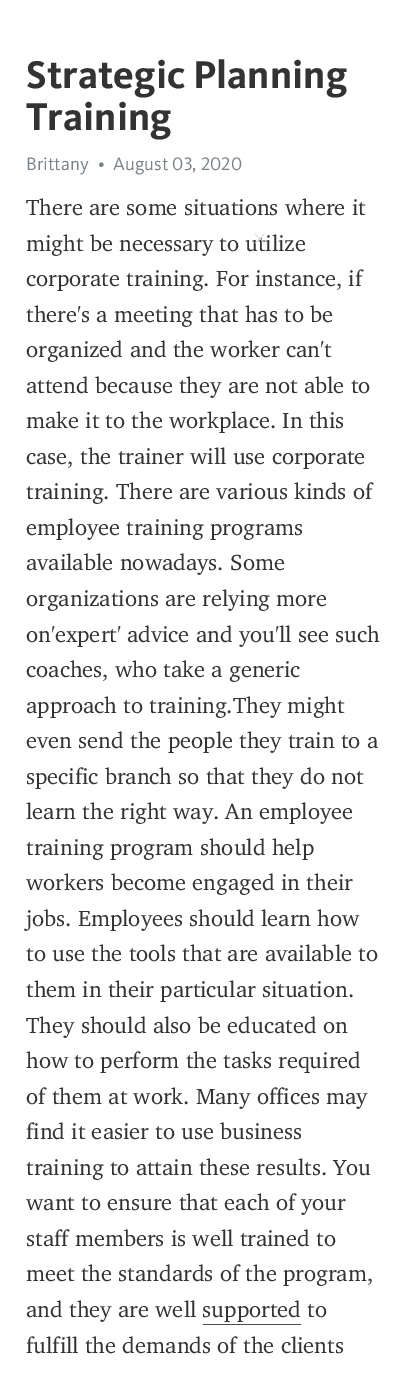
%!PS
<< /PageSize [409 1378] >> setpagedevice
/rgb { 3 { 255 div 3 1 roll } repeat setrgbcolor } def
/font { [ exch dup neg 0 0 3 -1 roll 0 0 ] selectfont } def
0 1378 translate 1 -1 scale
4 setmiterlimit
255 255 255 rgb
0 0 409 1378 rectfill
77 77 77 rgb
203 1324 98 1 rectfill
/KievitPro-Bold 40 font
51 51 51 rgb
26 88 moveto (Strategic Planning) show
26 130 moveto (Training) show
/KievitPro-Regular 18.75 font
121 130 139 rgb
[
  [(Brittany) 26 170]
  [(•) 98 170]
  [(August 03, 2020) 113 170]
] { aload pop moveto show } forall
/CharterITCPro-Regular 22.5 font
51 51 51 rgb
[
  [(There are some situations where it) 26 215]
  [(might be necessary to utilize) 26 251]
  [(corporate training. For instance, if) 26 286]
  [(there's a meeting that has to be) 26 322]
  [(organized and the worker can't) 26 357]
  [(attend because they are not able to) 26 393]
  [(make it to the workplace. In this) 26 428]
  [(case, the trainer will use corporate) 26 464]
  [(training. There are various kinds of) 26 499]
  [(employee training programs) 26 535]
  [(available nowadays. Some) 26 570]
  [(organizations are relying more) 26 606]
  [(on'expert' advice and you'll see such) 26 642]
  [(coaches, who take a generic) 26 677]
  [(approach to training.They might) 26 713]
  [(even send the people they train to a) 26 748]
  [(specific branch so that they do not) 26 784]
  [(learn the right way. An employee) 26 819]
  [(training program should help) 26 855]
  [(workers become engaged in their) 26 890]
  [(jobs. Employees should learn how) 26 926]
  [(to use the tools that are available to) 26 961]
  [(them in their particular situation.) 26 997]
  [(They should also be educated on) 26 1033]
  [(how to perform the tasks required) 26 1068]
  [(of them at work. Many offices may) 26 1104]
  [(find it easier to use business) 26 1139]
  [(training to attain these results. You) 26 1175]
  [(want to ensure that each of your) 26 1210]
  [(staff members is well trained to) 26 1246]
  [(meet the standards of the program,) 26 1281]
  [(and they are well supported to) 26 1317]
  [(fulfill the demands of the clients) 26 1353]
] { aload pop moveto show } forall
/CharterITCPro-Regular 18.75 font
217 217 217 rgb
252 244 moveto (×) show
showpage
